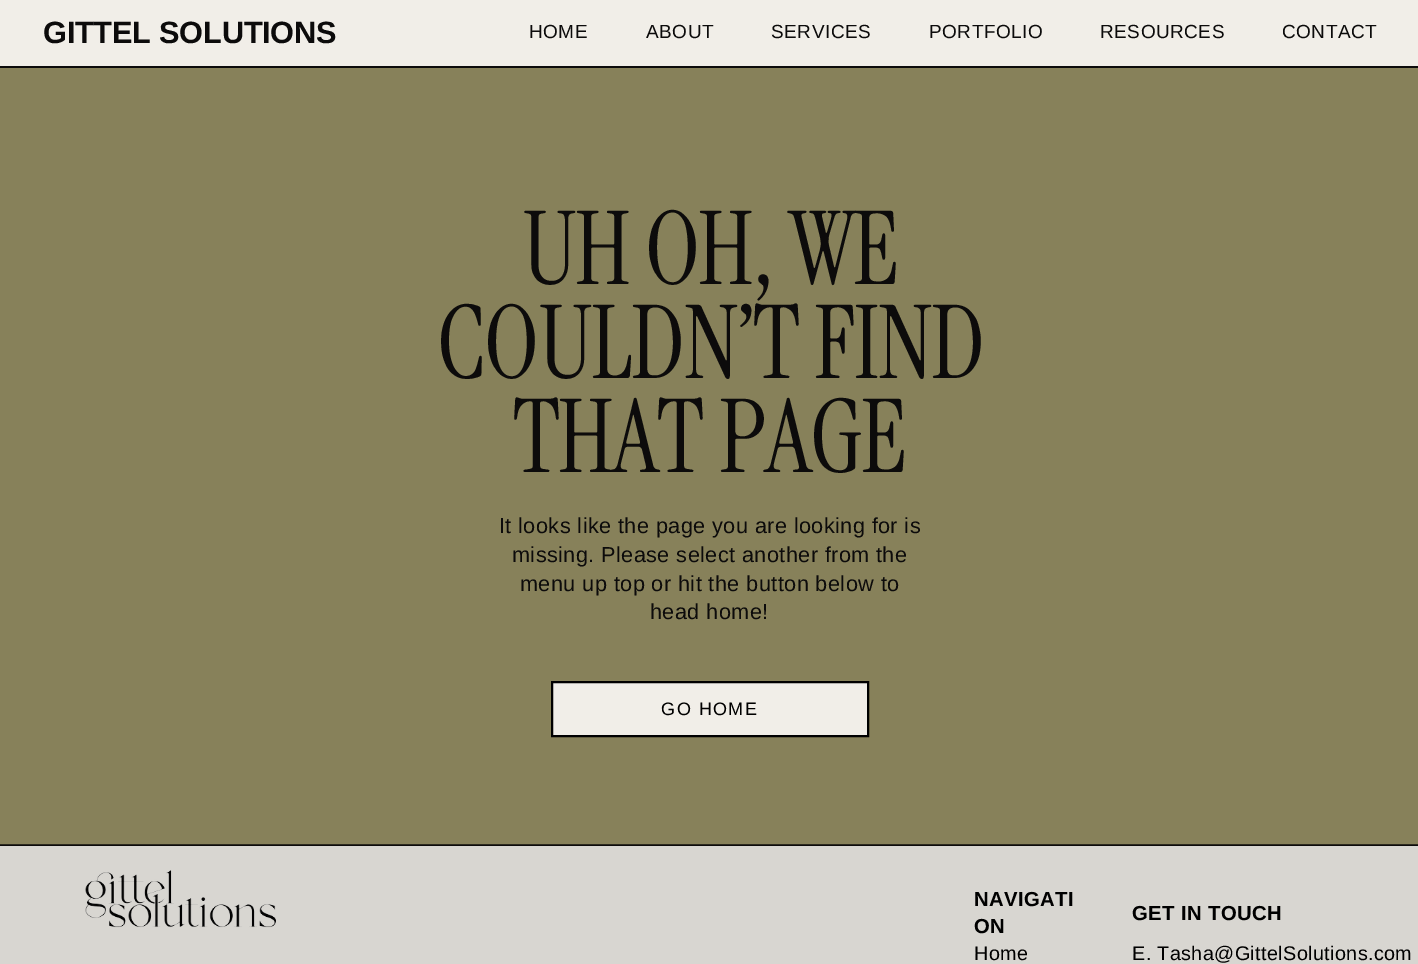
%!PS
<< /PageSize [1418 964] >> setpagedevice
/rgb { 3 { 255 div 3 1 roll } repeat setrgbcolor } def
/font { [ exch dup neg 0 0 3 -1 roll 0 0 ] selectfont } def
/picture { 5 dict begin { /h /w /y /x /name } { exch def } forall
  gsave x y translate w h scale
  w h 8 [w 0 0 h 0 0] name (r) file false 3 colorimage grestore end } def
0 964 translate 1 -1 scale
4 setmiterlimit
216 214 209 rgb
0 0 1418 964 rectfill
[
  [0 0 1418 66 241 238 232]
  [0 66 1418 2 12 11 11]
  [0 68 1418 777 135 129 90]
] { aload pop rgb rectfill } forall
241 238 232 rgb
552 682 moveto 868 682 lineto 868 736 lineto 552 736 lineto closepath gsave fill grestore
0 0 0 rgb
2 setlinewidth
stroke
12 11 11 rgb
1.5 setlinewidth
2 setlinecap
-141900 397.5 moveto -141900 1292 lineto 0 845 moveto 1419 845 lineto stroke
(img/1.rgb) 85 870 191 58 picture
/LiberationSans-Bold 30.75 font
43 43 moveto -0.25 0 (GITTEL SOLUTIONS) ashow
/LiberationSans-Regular 19 font
529 38 moveto 0.5 0 (HOME) ashow
646 38 moveto 0.5 0 (ABOUT) ashow
771 38 moveto 0.5 0 (SERVICES) ashow
929 38 moveto 0.5 0 (PORTFOLIO) ashow
1100 38 moveto 0.5 0 (RESOURCES) ashow
1282 38 moveto 0.5 0 (CONTACT) ashow
/InstrumentSerif-Regular 101.75 font
522 284 moveto -1.5 0 (UH OH, WE) ashow
437 378 moveto -1.5 0 (COULDN’T FIND) ashow
513 472 moveto -1.5 0 (THAT PAGE) ashow
/LiberationSans-Regular 21.7 font
499 533 moveto 0.4 0 (It looks like the page you are looking for is) ashow
512 562 moveto 0.4 0 (missing. Please select another from the) ashow
520 591 moveto 0.4 0 (menu up top or hit the button below to) ashow
650 619 moveto 0.4 0 (head home!) ashow
/LiberationSans-Regular 18 font
0 0 0 rgb
661 715 moveto 1.5 0 (GO HOME) ashow
/LiberationSans-Bold 20.25 font
974 906 moveto 0.4 0 (NAVIGATI) ashow
974 933 moveto 0.4 0 (ON) ashow
1132 920 moveto 0.4 0 (GET IN TOUCH) ashow
/LiberationSans-Regular 19.75 font
974 960 moveto 0.4 0 (Home) ashow
1132 960 moveto 0.4 0 (E. Tasha@GittelSolutions.com) ashow
showpage
